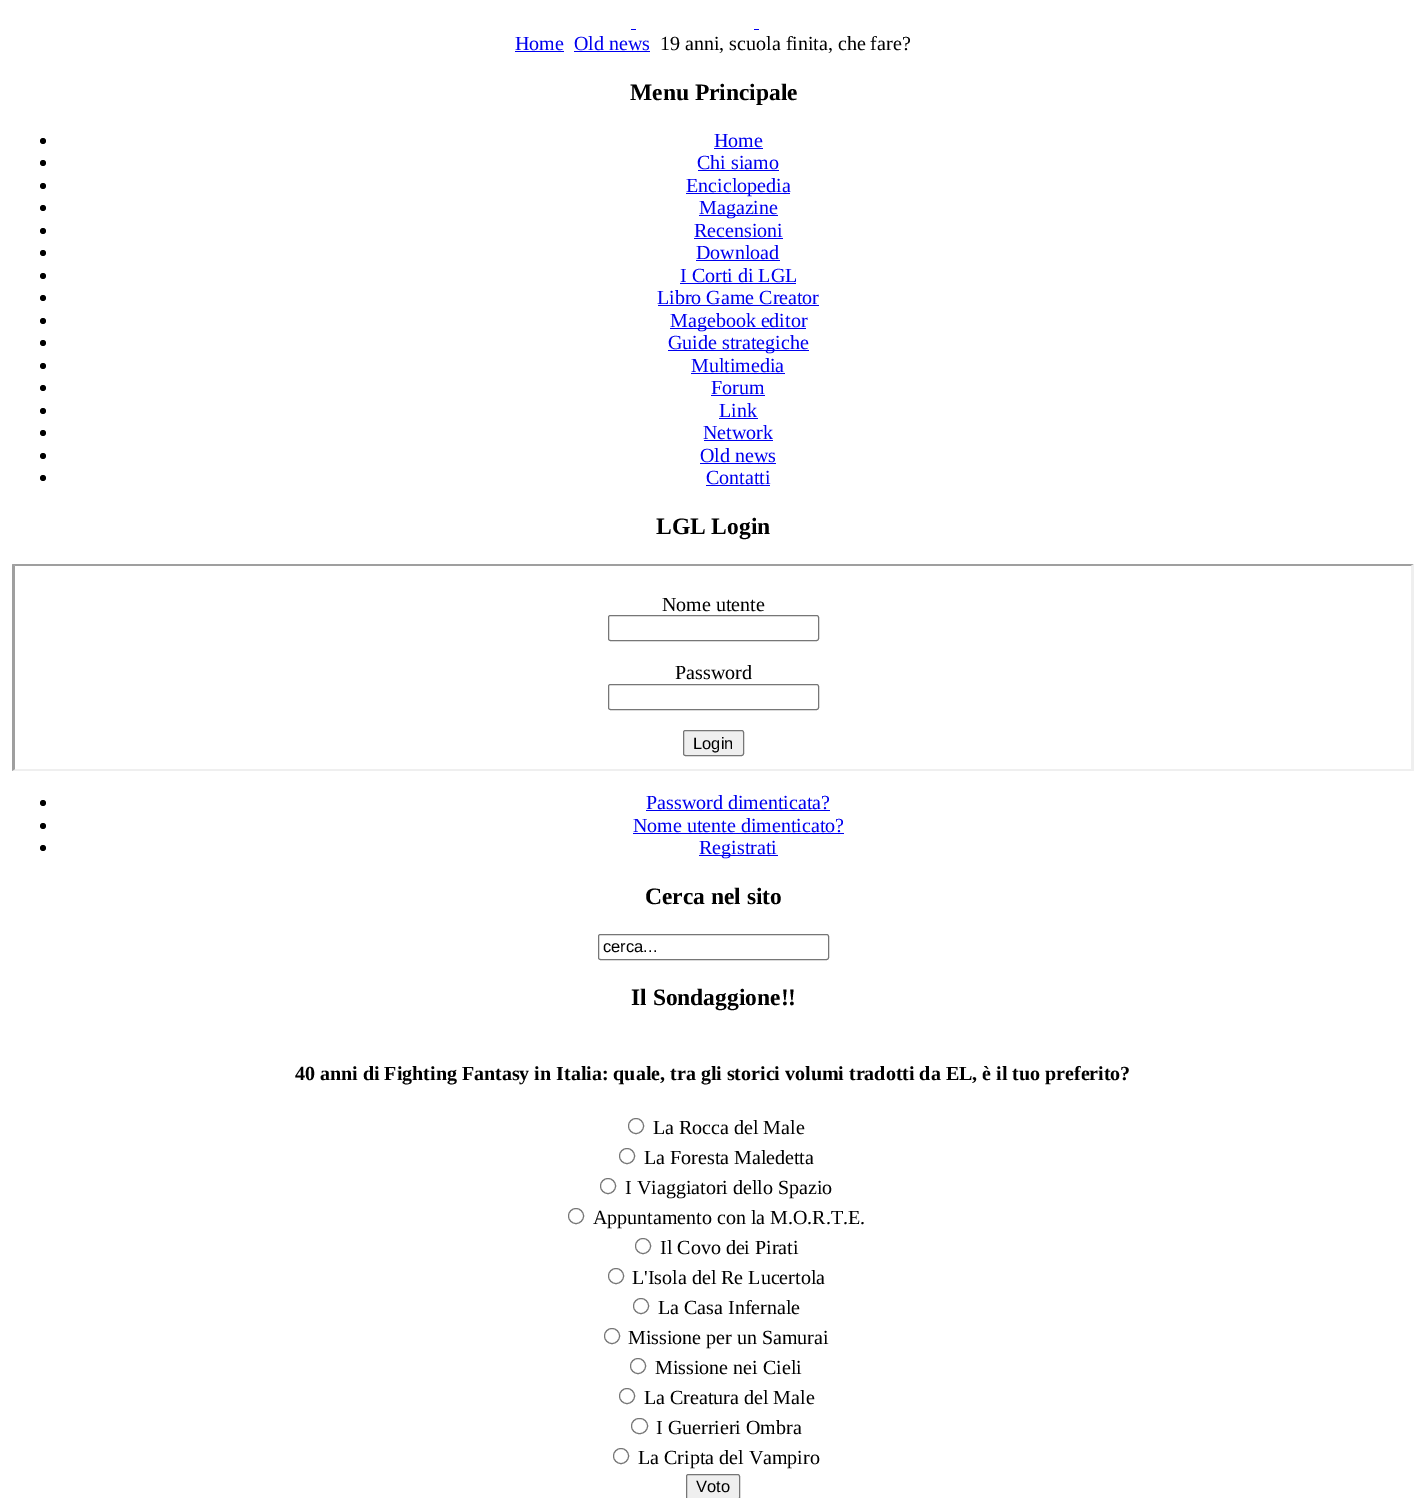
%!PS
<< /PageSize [1426 1498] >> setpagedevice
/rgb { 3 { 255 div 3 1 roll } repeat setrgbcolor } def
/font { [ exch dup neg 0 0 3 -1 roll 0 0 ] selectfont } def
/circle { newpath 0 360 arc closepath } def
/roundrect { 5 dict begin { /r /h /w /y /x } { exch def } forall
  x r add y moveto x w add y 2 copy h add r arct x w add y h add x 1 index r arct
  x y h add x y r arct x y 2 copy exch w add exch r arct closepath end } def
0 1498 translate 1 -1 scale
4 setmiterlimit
255 255 255 rgb
0 0 1426 1498 rectfill
[
  [631 29 5 1 0 0 238]
  [754 29 5 1 0 0 238]
  [515 51 49 1 0 0 238]
  [574 51 76 1 0 0 238]
] { aload pop rgb rectfill } forall
0 0 0 rgb
43 141 3 circle fill
0 0 238 rgb
714 148 49 1 rectfill
0 0 0 rgb
43 163 3 circle fill
0 0 238 rgb
698 170 81 1 rectfill
0 0 0 rgb
43 186 3 circle fill
0 0 238 rgb
686 193 104 1 rectfill
0 0 0 rgb
43 208 3 circle fill
0 0 238 rgb
699 215 79 1 rectfill
0 0 0 rgb
43 231 3 circle fill
0 0 238 rgb
694 238 89 1 rectfill
0 0 0 rgb
43 253 3 circle fill
0 0 238 rgb
696 260 84 1 rectfill
0 0 0 rgb
43 276 3 circle fill
0 0 238 rgb
680 283 116 1 rectfill
0 0 0 rgb
43 298 3 circle fill
0 0 238 rgb
658 305 161 1 rectfill
0 0 0 rgb
43 321 3 circle fill
0 0 238 rgb
670 328 136 1 rectfill
0 0 0 rgb
43 343 3 circle fill
0 0 238 rgb
668 350 141 1 rectfill
0 0 0 rgb
43 366 3 circle fill
0 0 238 rgb
691 373 94 1 rectfill
0 0 0 rgb
43 388 3 circle fill
0 0 238 rgb
711 395 54 1 rectfill
0 0 0 rgb
43 411 3 circle fill
0 0 238 rgb
719 418 39 1 rectfill
0 0 0 rgb
43 433 3 circle fill
0 0 238 rgb
704 440 69 1 rectfill
0 0 0 rgb
43 456 3 circle fill
0 0 238 rgb
700 463 76 1 rectfill
0 0 0 rgb
43 478 3 circle fill
0 0 238 rgb
706 485 64 1 rectfill
159 159 159 rgb
12 564 moveto 1414 564 lineto 1411 566 lineto 15 566 lineto closepath fill
239 239 239 rgb
1414 564 moveto 1414 771 lineto 1411 769 lineto 1411 566 lineto closepath fill
1414 771 moveto 12 771 lineto 15 769 lineto 1411 769 lineto closepath fill
159 159 159 rgb
12 771 moveto 12 564 lineto 15 566 lineto 15 769 lineto closepath fill
118 118 118 rgb
608.5 615.5 210 25 2 roundrect stroke
608.5 684.5 210 25 2 roundrect stroke
239 239 239 rgb
683.5 730.5 60 25 2 roundrect gsave fill grestore
118 118 118 rgb
stroke
0 0 0 rgb
43 803 3 circle fill
0 0 238 rgb
646 810 184 1 rectfill
0 0 0 rgb
43 826 3 circle fill
0 0 238 rgb
633 833 211 1 rectfill
0 0 0 rgb
43 848 3 circle fill
0 0 238 rgb
699 855 79 1 rectfill
118 118 118 rgb
598.5 934.5 230 25 2 roundrect stroke
636 1126 7.5 circle stroke
627 1156 7.5 circle stroke
608 1186 7.5 circle stroke
576 1216 7.5 circle stroke
643 1246 7.5 circle stroke
616 1276 7.5 circle stroke
641 1306 7.5 circle stroke
612 1336 7.5 circle stroke
638 1366 7.5 circle stroke
627 1396 7.5 circle stroke
631.5 1418.5 16 15 7.5 roundrect stroke
621 1456 7.5 circle stroke
239 239 239 rgb
686.5 1474.5 53 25 2 roundrect gsave fill grestore
118 118 118 rgb
stroke
/LiberationSerif-Regular 20 font
0 0 238 rgb
515 50 moveto (Home) show
574 50 moveto (Old news) show
0 0 0 rgb
660 50 moveto (19 anni, scuola finita, che fare?) show
/LiberationSerif-Bold 23.5 font
630 100 moveto (Menu Principale) show
/LiberationSerif-Regular 20 font
0 0 238 rgb
[
  [(Home) 714 147]
  [(Chi siamo) 697 169]
  [(Enciclopedia) 686 192]
  [(Magazine) 699 214]
  [(Recensioni) 694 237]
  [(Download) 696 259]
  [(I Corti di LGL) 680 282]
  [(Libro Game Creator) 657 304]
  [(Magebook editor) 670 327]
  [(Guide strategiche) 668 349]
  [(Multimedia) 691 372]
  [(Forum) 711 394]
  [(Link) 719 417]
  [(Network) 703 439]
  [(Old news) 700 462]
  [(Contatti) 706 484]
] { aload pop moveto show } forall
/LiberationSerif-Bold 23.5 font
0 0 0 rgb
656 534 moveto (LGL Login) show
/LiberationSerif-Regular 20 font
662 611 moveto (Nome utente) show
675 679 moveto (Password) show
/LiberationSans-Regular 16.5 font
693 749 moveto (Login) show
/LiberationSerif-Regular 20 font
0 0 238 rgb
[
  [(Password dimenticata?) 646 809]
  [(Nome utente dimenticato?) 633 832]
  [(Registrati) 699 854]
] { aload pop moveto show } forall
/LiberationSerif-Bold 23.5 font
0 0 0 rgb
645 904 moveto (Cerca nel sito) show
/LiberationSans-Regular 16.5 font
603 952 moveto (cerca...) show
/LiberationSerif-Bold 23.5 font
631 1005 moveto (Il Sondaggione!!) show
/LiberationSerif-Bold 20 font
295 1080 moveto (40 anni di Fighting Fantasy in Italia: quale, tra gli storici volumi tradotti da EL, è il tuo preferito?) show
/LiberationSerif-Regular 20 font
[
  [(La Rocca del Male) 653 1134]
  [(La Foresta Maledetta) 644 1164]
  [(I Viaggiatori dello Spazio) 625 1194]
  [(Appuntamento con la M.O.R.T.E.) 593 1224]
  [(Il Covo dei Pirati) 660 1254]
  [(L'Isola del Re Lucertola) 632 1284]
  [(La Casa Infernale) 658 1314]
  [(Missione per un Samurai) 628 1344]
  [(Missione nei Cieli) 655 1374]
  [(La Creatura del Male) 644 1404]
  [(I Guerrieri Ombra) 656 1434]
  [(La Cripta del Vampiro) 638 1464]
] { aload pop moveto show } forall
/LiberationSans-Regular 16.5 font
696 1492 moveto (Voto) show
showpage
